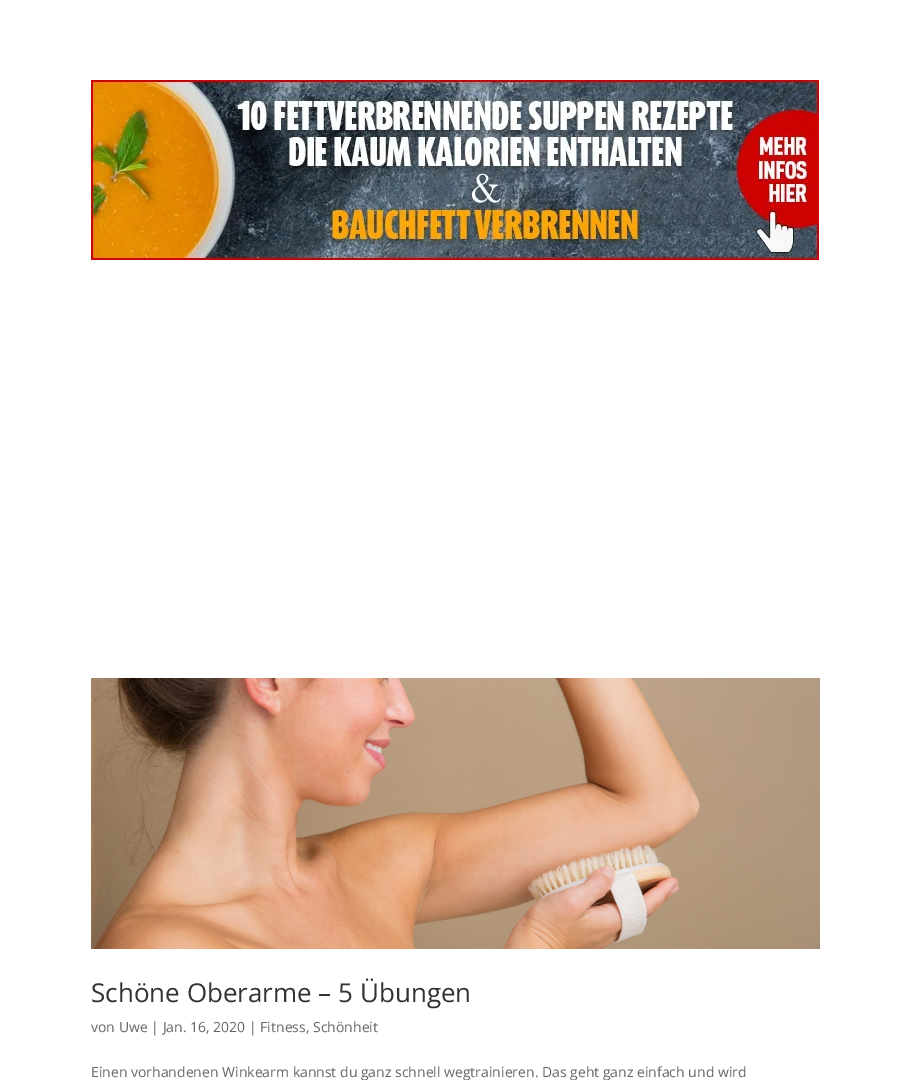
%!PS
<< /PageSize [911 1080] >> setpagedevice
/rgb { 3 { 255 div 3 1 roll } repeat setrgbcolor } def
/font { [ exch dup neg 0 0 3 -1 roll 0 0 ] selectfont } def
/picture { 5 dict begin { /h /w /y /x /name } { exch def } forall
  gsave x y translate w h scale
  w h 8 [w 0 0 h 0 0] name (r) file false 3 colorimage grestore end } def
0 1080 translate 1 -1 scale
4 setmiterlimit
255 255 255 rgb
0 0 911 1080 rectfill
(img/1.rgb) 91 80 728 180 picture
(img/2.rgb) 91 678 729 271 picture
/OpenSans-Regular 26 font
51 51 51 rgb
91 1002 moveto (Schöne Oberarme – 5 Übungen) show
/OpenSans-Regular 14 font
102 102 102 rgb
91 1032 moveto (von Uwe | Jan. 16, 2020 | Fitness, Schönheit) show
91 1077 moveto (Einen vorhandenen Winkearm kannst du ganz schnell wegtrainieren. Das geht ganz einfach und wird) show
showpage
